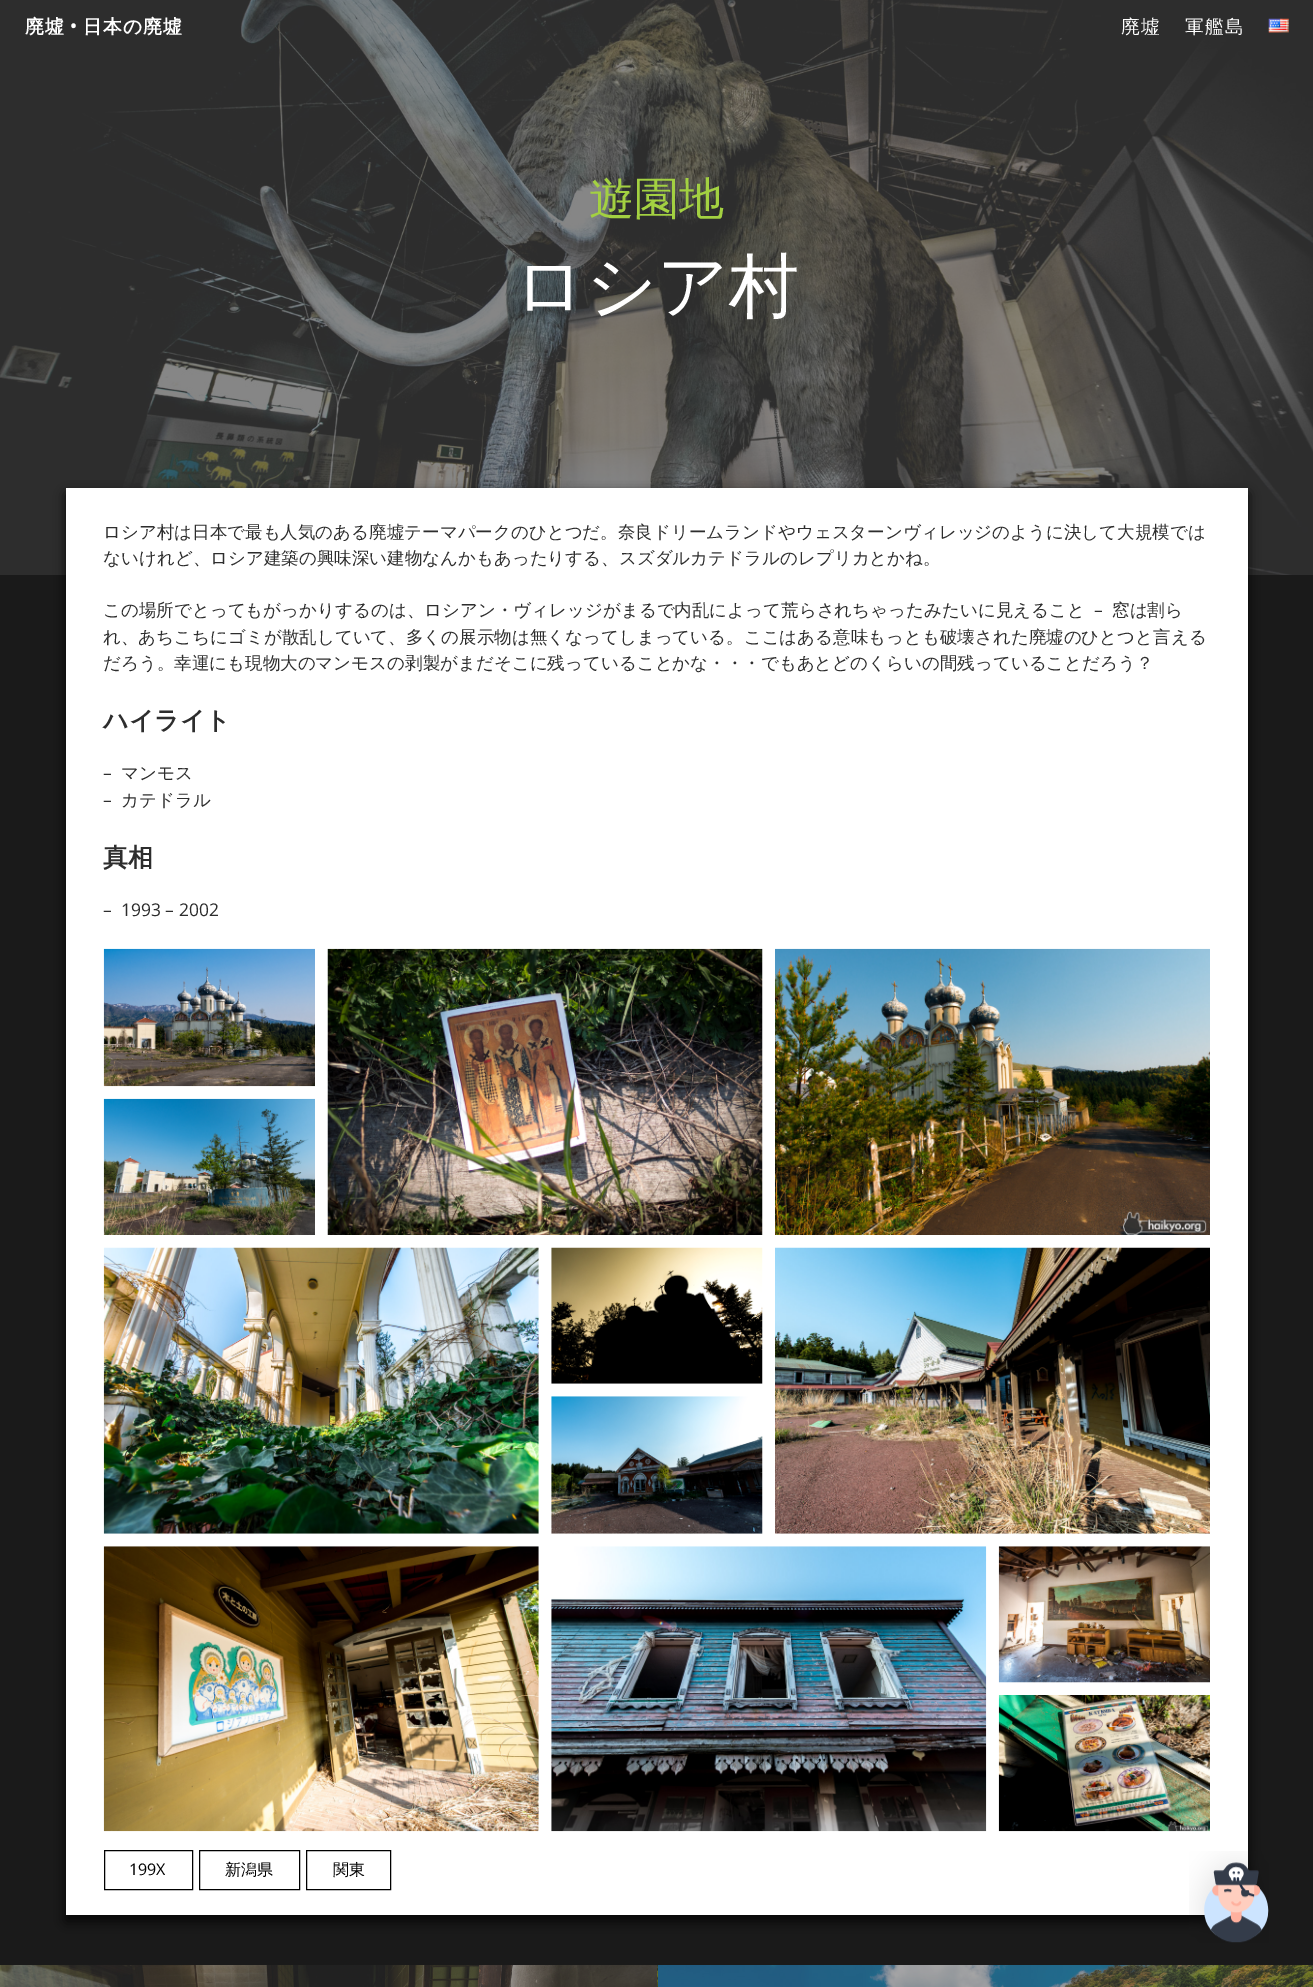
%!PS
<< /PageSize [1313 1987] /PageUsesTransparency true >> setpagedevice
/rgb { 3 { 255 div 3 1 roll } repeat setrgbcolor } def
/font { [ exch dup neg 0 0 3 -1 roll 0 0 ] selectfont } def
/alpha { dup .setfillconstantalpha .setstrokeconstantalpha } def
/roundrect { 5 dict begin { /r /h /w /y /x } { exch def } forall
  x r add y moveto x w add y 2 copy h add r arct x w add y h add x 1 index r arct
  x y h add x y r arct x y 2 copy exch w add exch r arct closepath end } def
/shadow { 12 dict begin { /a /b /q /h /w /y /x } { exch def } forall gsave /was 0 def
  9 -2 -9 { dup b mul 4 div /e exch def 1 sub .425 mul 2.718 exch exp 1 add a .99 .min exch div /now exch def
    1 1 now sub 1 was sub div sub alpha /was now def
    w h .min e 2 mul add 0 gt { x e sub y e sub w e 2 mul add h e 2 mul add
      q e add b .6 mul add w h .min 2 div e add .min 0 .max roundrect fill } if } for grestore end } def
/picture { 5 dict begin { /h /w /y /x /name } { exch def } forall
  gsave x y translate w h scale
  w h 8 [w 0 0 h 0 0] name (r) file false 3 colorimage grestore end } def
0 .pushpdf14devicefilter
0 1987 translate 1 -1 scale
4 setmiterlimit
26 26 26 rgb
0 0 1313 1987 rectfill
(img/2.rgb) 0 0 1313 575 picture
(img/1.rgb) 1268 18 21 15 picture
6 6 6 rgb
66 494 1182 1427 0 6 1 shadow
255 255 255 rgb
66 488 1182 1427 rectfill
(img/3.rgb) 103 948 212 139 picture
(img/4.rgb) 327 948 436 287 picture
(img/5.rgb) 775 948 435 287 picture
(img/6.rgb) 103 1098 212 137 picture
(img/7.rgb) 103 1247 436 287 picture
(img/8.rgb) 551 1247 212 137 picture
(img/9.rgb) 775 1247 435 287 picture
(img/10.rgb) 551 1396 212 138 picture
(img/11.rgb) 103 1546 436 286 picture
(img/12.rgb) 551 1546 436 286 picture
(img/13.rgb) 998 1546 212 137 picture
(img/14.rgb) 998 1695 212 137 picture
0 0 0 rgb
104.5 1850.5 88 39 rectstroke
199.5 1850.5 100 39 rectstroke
306.5 1850.5 84 39 rectstroke
(img/15.rgb) 0 1965 658 22 picture
(img/16.rgb) 657 1965 656 22 picture
(img/17.rgb) 1189 1851 80 92 picture
/WenQuanYiZenHei-Bold 18.75 font
255 255 255 rgb
25 33 moveto 1.25 0 (廃墟) ashow
/FjallaOne-Bold 18.75 font
70 33 moveto 1.25 0 (•) ashow
/WenQuanYiZenHei-Bold 18.75 font
83 33 moveto 1.25 0 (日本の廃墟) ashow
/WenQuanYiZenHei-Medium 18.75 font
1121 33 moveto 1.25 0 (廃墟) ashow
1185 33 moveto 1.25 0 (軍艦島) ashow
/WenQuanYiZenHei-Medium 45 font
163 209 65 rgb
589 214 moveto (遊園地) show
/WenQuanYiZenHei-Medium 70 font
255 255 255 rgb
514 310 moveto (ロシア村) show
/WenQuanYiZenHei-Medium 17.5 font
45 45 45 rgb
[
  [(ロシア村は日本で最も人気のある廃墟テーマパークのひとつだ。奈良ドリームランドやウェスターンヴィレッジのように決して大規模では) 103 538]
  [(ないけれど、ロシア建築の興味深い建物なんかもあったりする、スズダルカテドラルのレプリカとかね。) 103 564]
  [(この場所でとってもがっかりするのは、ロシアン・ヴィレッジがまるで内乱によって荒らされちゃったみたいに見えること) 103 616]
] { aload pop moveto show } forall
/OpenSans-Regular 17.5 font
1094 616 moveto (–) show
/WenQuanYiZenHei-Medium 17.5 font
[
  [(窓は割ら) 1112 616]
  [(れ、あちこちにゴミが散乱していて、多くの展示物は無くなってしまっている。ここはある意味もっとも破壊された廃墟のひとつと言える) 103 643]
  [(だろう。幸運にも現物大のマンモスの剥製がまだそこに残っていることかな・・・でもあとどのくらいの間残っていることだろう？) 103 669]
] { aload pop moveto show } forall
/WenQuanYiZenHei-Bold 25 font
103 729 moveto (ハイライト) show
/OpenSans-Regular 17.5 font
103 779 moveto (–) show
/WenQuanYiZenHei-Medium 17.5 font
121 779 moveto (マンモス) show
/OpenSans-Regular 17.5 font
103 806 moveto (–) show
/WenQuanYiZenHei-Medium 17.5 font
121 806 moveto (カテドラル) show
/WenQuanYiZenHei-Bold 25 font
103 866 moveto (真相) show
/OpenSans-Regular 17.5 font
103 916 moveto (–  1993 – 2002) show
/OpenSans-Regular 16 font
0 0 0 rgb
129 1875 moveto (199X) show
/WenQuanYiZenHei-Medium 16 font
225 1875 moveto (新潟県) show
333 1875 moveto (関東) show
.poppdf14devicefilter showpage
